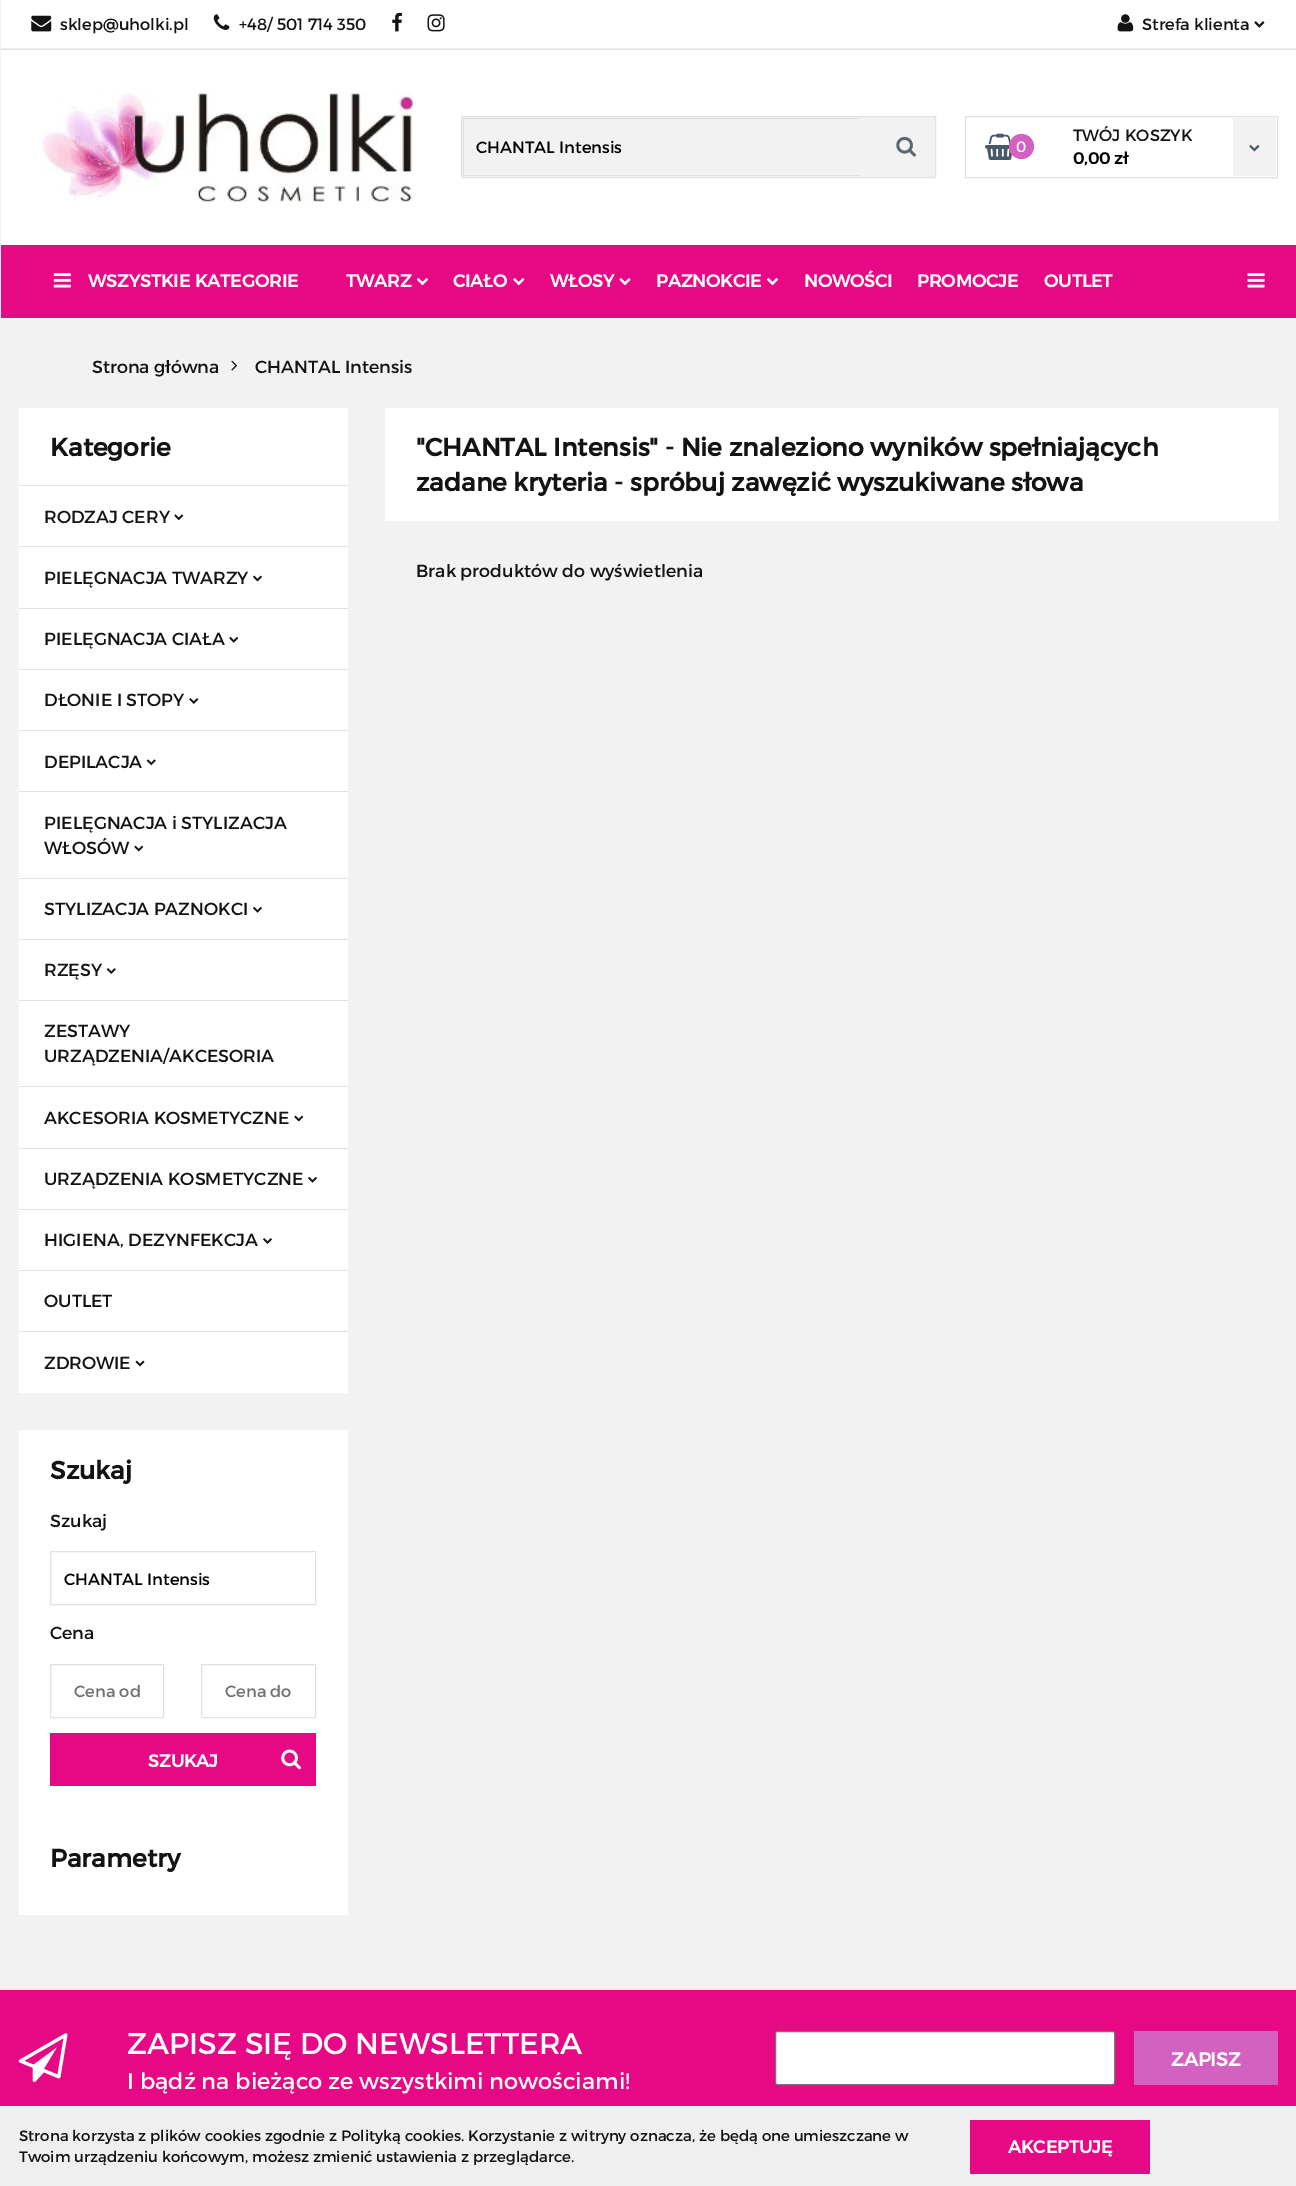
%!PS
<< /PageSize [1296 2186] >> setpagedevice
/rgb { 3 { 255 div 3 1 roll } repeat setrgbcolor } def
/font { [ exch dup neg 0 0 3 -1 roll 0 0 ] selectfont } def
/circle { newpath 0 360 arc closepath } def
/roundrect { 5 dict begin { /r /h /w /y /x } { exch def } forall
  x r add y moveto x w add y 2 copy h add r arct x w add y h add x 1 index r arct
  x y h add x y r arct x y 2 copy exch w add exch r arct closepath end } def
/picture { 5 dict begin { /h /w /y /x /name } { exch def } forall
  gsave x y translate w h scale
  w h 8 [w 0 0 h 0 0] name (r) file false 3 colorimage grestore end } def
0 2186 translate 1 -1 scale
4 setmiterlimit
242 242 242 rgb
0 0 1296 2186 rectfill
255 255 255 rgb
1 0 1295 48 rectfill
(img/1.rgb) 31 15 21 17 picture
(img/2.rgb) 213 14 17 16 picture
(img/3.rgb) 392 12 10 20 picture
(img/4.rgb) 427 14 18 18 picture
(img/5.rgb) 1117 14 17 18 picture
(img/6.rgb) 1254 21 11 7 picture
[
  [1 48 1295 1 239 239 239]
  [1 49 1295 1 225 225 225]
  [1 50 1295 195 255 255 255]
] { aload pop rgb rectfill } forall
(img/7.rgb) 38 92 375 110 picture
242 242 242 rgb
461.5 116.5 moveto 935.5 116.5 lineto 935.5 177.5 lineto 461.5 177.5 lineto closepath gsave fill grestore
225 225 225 rgb
stroke
[
  [463 118 397 1 225 225 225]
  [463 175 397 1 225 225 225]
  [463 118 1 58 225 225 225]
] { aload pop rgb rectfill } forall
(img/8.rgb) 896 136 20 21 picture
965.5 116.5 312 61 rectstroke
(img/9.rgb) 985 133 27 27 picture
210 97 192 rgb
1021.5 146.5 12.5 circle fill
242 242 242 rgb
1233 118 43 58 rectfill
(img/10.rgb) 1249 145 11 7 picture
230 8 132 rgb
1 245 1295 73 rectfill
(img/11.rgb) 53 273 18 15 picture
(img/12.rgb) 416 278 13 8 picture
(img/13.rgb) 513 278 12 8 picture
(img/14.rgb) 619 278 12 8 picture
(img/12.rgb) 766 278 13 8 picture
(img/15.rgb) 1247 273 18 15 picture
(img/16.rgb) 231 360 6 11 picture
255 255 255 rgb
19 408 329 985 rectfill
225 225 225 rgb
19 485 329 1 rectfill
(img/17.rgb) 174 514 10 7 picture
19 546 329 1 rectfill
(img/18.rgb) 253 575 9 7 picture
19 608 329 1 rectfill
(img/19.rgb) 229 637 10 6 picture
19 669 329 1 rectfill
(img/20.rgb) 189 698 10 6 picture
19 730 329 1 rectfill
(img/21.rgb) 146 759 10 7 picture
19 791 329 1 rectfill
(img/22.rgb) 134 845 10 7 picture
19 878 329 1 rectfill
(img/23.rgb) 253 907 9 6 picture
19 939 329 1 rectfill
(img/24.rgb) 106 968 10 6 picture
19 1000 329 1 rectfill
19 1086 329 1 rectfill
(img/22.rgb) 294 1115 10 7 picture
19 1148 329 1 rectfill
(img/23.rgb) 308 1177 9 6 picture
19 1209 329 1 rectfill
(img/25.rgb) 263 1238 9 6 picture
19 1270 329 1 rectfill
19 1331 329 1 rectfill
(img/26.rgb) 135 1360 10 7 picture
255 255 255 rgb
19 1430 329 485 rectfill
225 225 225 rgb
50.5 1551.5 265 53 rectstroke
50.5 1664.5 113 53 rectstroke
201.5 1664.5 114 53 rectstroke
230 8 132 rgb
50 1733 266 53 rectfill
(img/27.rgb) 281 1749 20 21 picture
255 255 255 rgb
385 408 893 113 rectfill
230 8 132 rgb
0 1990 1296 116 rectfill
(img/28.rgb) 18 2033 50 49 picture
255 255 255 rgb
775.5 2031.5 339 53 2 roundrect gsave fill grestore
118 118 118 rgb
stroke
[
  [1134 2031 144 54 210 97 192]
  [0 2106 1296 80 239 239 239]
  [970 2120 180 54 230 8 132]
] { aload pop rgb rectfill } forall
/Montserrat-Regular 16.25 font
19 19 19 rgb
[
  [(sklep@uholki.pl) 60 30]
  [(+48/ 501 714 350) 239 30]
  [(Strefa klienta) 1142 30]
] { aload pop moveto show } forall
0 0 0 rgb
476 153 moveto (CHANTAL Intensis) show
/Montserrat-Regular 15 font
255 255 255 rgb
1016 152 moveto (0) show
/Montserrat-Regular 16.25 font
19 19 19 rgb
1073 141 moveto (TWÓJ KOSZYK) show
/Montserrat-Bold 16.25 font
0 0 0 rgb
1073 164 moveto (0,00 zł) show
/Montserrat-Bold 17.5 font
255 255 255 rgb
[
  [(WSZYSTKIE KATEGORIE) 88 287]
  [(TWARZ) 346 287]
  [(CIAŁO) 453 287]
  [(WŁOSY) 550 287]
  [(PAZNOKCIE) 656 287]
  [(NOWOŚCI) 804 287]
  [(PROMOCJE) 917 287]
  [(OUTLET) 1044 287]
] { aload pop moveto show } forall
/Montserrat-Regular 17.5 font
19 19 19 rgb
92 373 moveto (Strona główna) show
255 373 moveto (CHANTAL Intensis) show
/Montserrat-Bold 25 font
50 456 moveto (Kategorie) show
/Montserrat-Regular 17.5 font
[
  [(RODZAJ CERY) 44 523]
  [(PIELĘGNACJA TWARZY) 44 584]
  [(PIELĘGNACJA CIAŁA) 44 645]
  [(DŁONIE I STOPY) 44 706]
  [(DEPILACJA) 44 768]
  [(PIELĘGNACJA i STYLIZACJA) 44 829]
  [(WŁOSÓW) 44 854]
  [(STYLIZACJA PAZNOKCI) 44 915]
  [(RZĘSY) 44 976]
  [(ZESTAWY) 44 1037]
  [(URZĄDZENIA/AKCESORIA) 44 1062]
  [(AKCESORIA KOSMETYCZNE) 44 1124]
  [(URZĄDZENIA KOSMETYCZNE) 44 1185]
  [(HIGIENA, DEZYNFEKCJA) 44 1246]
  [(OUTLET) 44 1307]
  [(ZDROWIE) 44 1369]
] { aload pop moveto show } forall
/Montserrat-Bold 25 font
50 1479 moveto (Szukaj) show
/Montserrat-Regular 17.5 font
50 1527 moveto (Szukaj) show
/Montserrat-Regular 16.25 font
0 0 0 rgb
64 1585 moveto (CHANTAL Intensis) show
/Montserrat-Regular 17.5 font
19 19 19 rgb
50 1639 moveto (Cena) show
/Montserrat-Regular 16.25 font
113 113 113 rgb
74 1697 moveto (Cena od) show
225 1697 moveto (Cena do) show
/Montserrat-Bold 17.5 font
255 255 255 rgb
148 1767 moveto (SZUKAJ) show
/Montserrat-Bold 25 font
19 19 19 rgb
[
  [(Parametry) 50 1867]
  [("CHANTAL Intensis" - Nie znaleziono wyników spełniających) 416 456]
  [(zadane kryteria - spróbuj zawęzić wyszukiwane słowa) 416 491]
] { aload pop moveto show } forall
/Montserrat-Regular 17.5 font
416 577 moveto (Brak produktów do wyświetlenia) show
/Montserrat-Regular 30 font
255 255 255 rgb
127 2054 moveto (ZAPISZ SIĘ DO NEWSLETTERA) show
/Montserrat-Regular 22.5 font
127 2089 moveto (I bądź na bieżąco ze wszystkimi nowościami!) show
/Montserrat-Bold 19 font
1171 2066 moveto (ZAPISZ) show
/Montserrat-Regular 15 font
19 19 19 rgb
19 2141 moveto (Strona korzysta z plików cookies zgodnie z Polityką cookies. Korzystanie z witryny oznacza, że będą one umieszczane w) show
19 2162 moveto (Twoim urządzeniu końcowym, możesz zmienić ustawienia z przeglądarce.) show
/Montserrat-Bold 17.5 font
255 255 255 rgb
1008 2153 moveto (AKCEPTUJĘ) show
showpage
